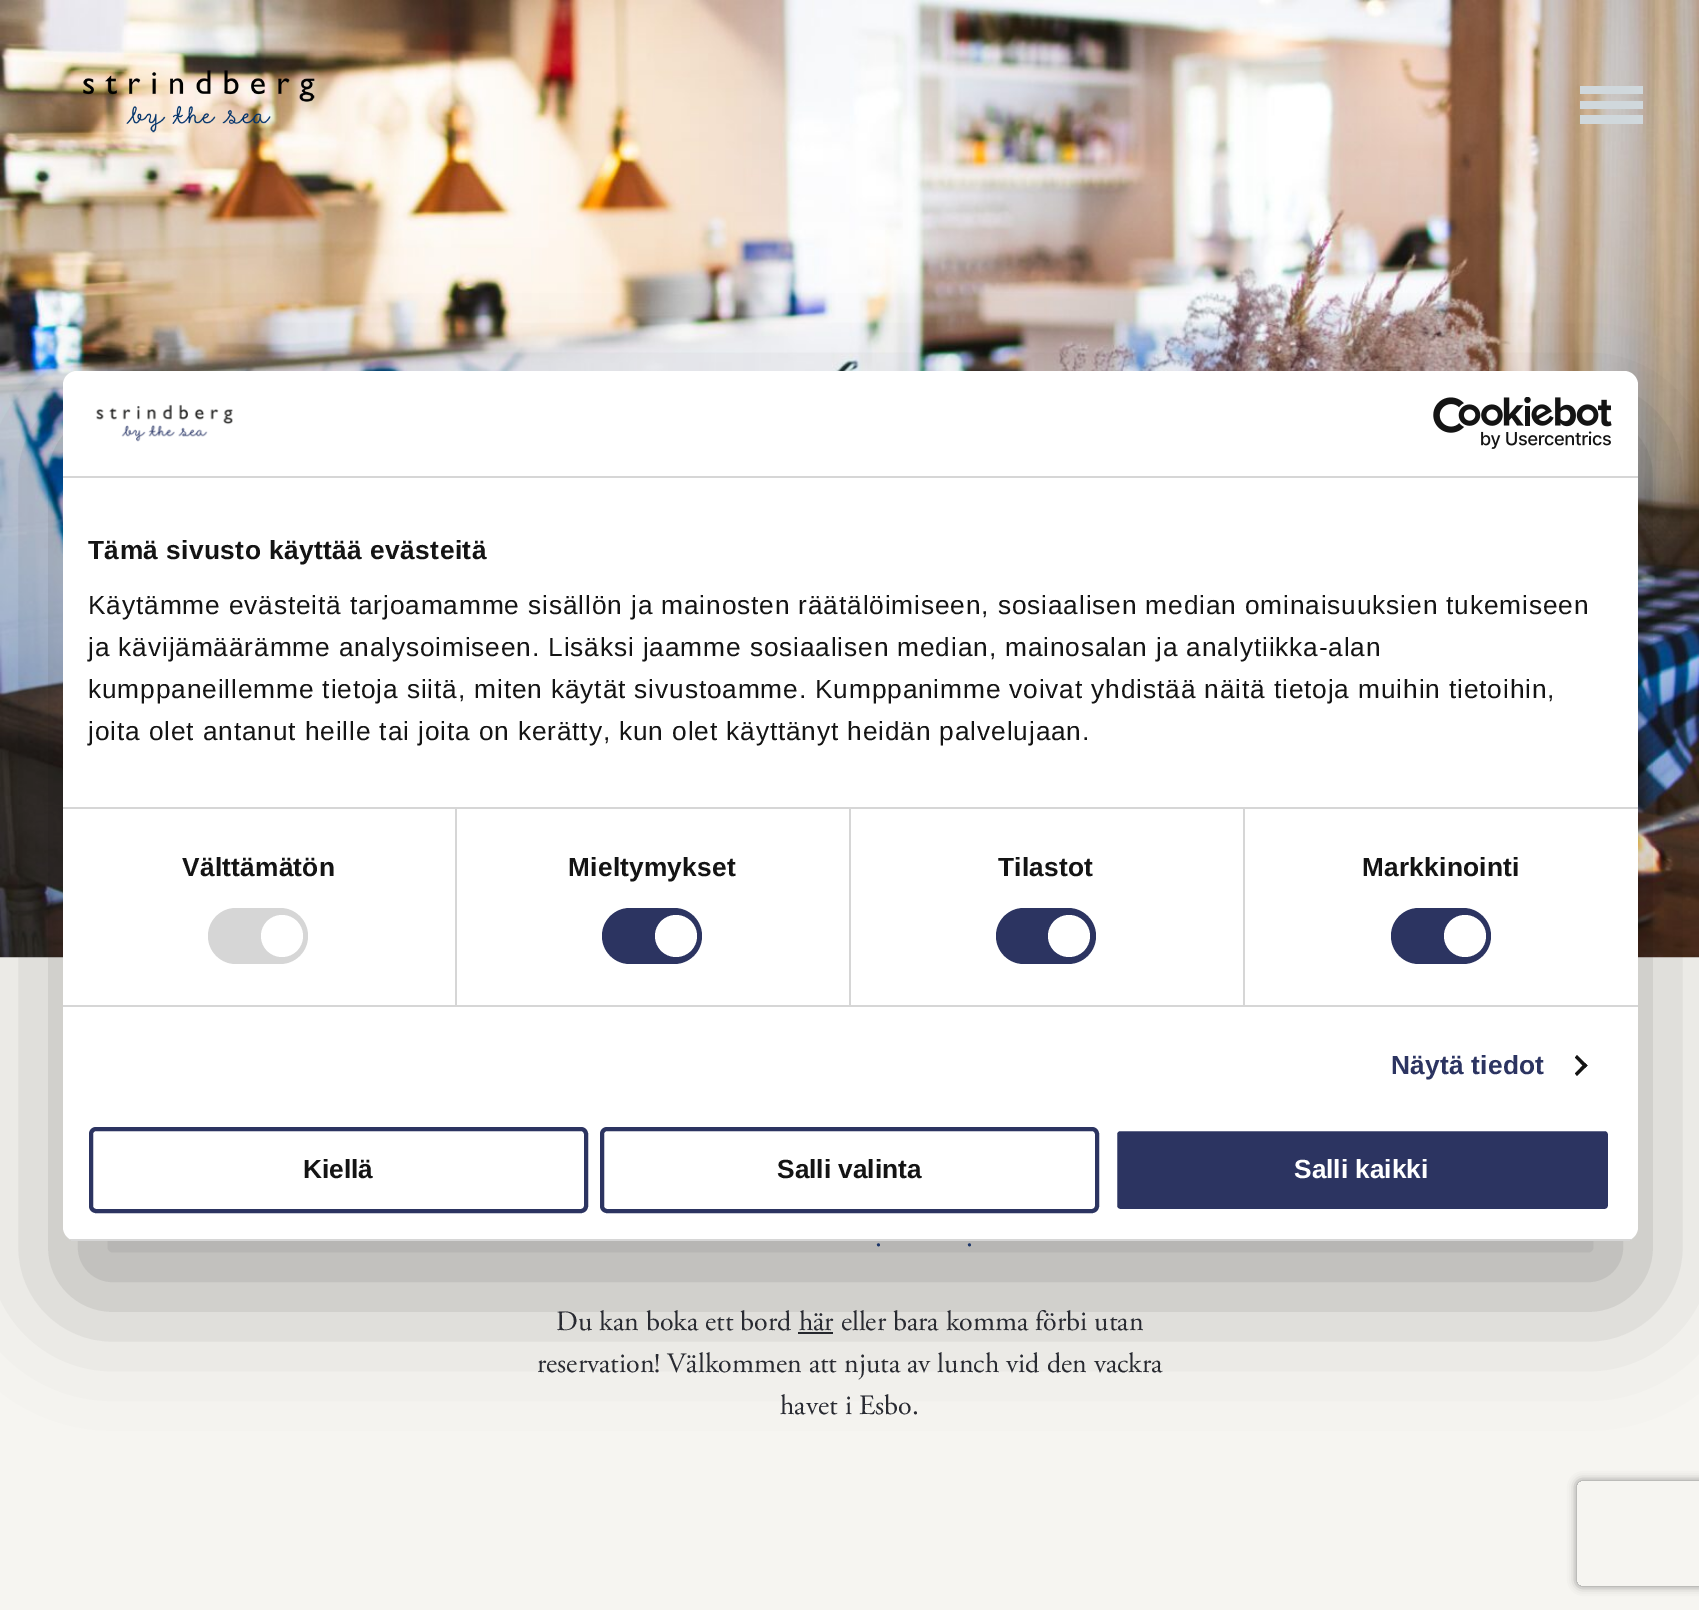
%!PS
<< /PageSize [1699 1610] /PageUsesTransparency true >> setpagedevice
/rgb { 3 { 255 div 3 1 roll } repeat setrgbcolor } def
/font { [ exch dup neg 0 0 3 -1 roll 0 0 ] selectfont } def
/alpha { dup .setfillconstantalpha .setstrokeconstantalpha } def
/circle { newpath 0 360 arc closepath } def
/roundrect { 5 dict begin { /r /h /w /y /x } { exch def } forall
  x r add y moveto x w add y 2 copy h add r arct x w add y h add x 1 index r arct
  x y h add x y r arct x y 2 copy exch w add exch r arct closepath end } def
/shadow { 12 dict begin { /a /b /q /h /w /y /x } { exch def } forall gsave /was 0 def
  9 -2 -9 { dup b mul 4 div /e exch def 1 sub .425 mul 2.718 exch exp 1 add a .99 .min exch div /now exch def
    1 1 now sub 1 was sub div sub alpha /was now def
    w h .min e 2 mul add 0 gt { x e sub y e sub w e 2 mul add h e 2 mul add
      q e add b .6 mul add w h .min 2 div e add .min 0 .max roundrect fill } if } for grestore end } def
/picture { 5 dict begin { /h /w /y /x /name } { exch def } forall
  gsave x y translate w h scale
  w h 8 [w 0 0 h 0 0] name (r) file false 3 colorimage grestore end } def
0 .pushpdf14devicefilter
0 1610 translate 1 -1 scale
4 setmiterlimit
246 245 241 rgb
0 0 1699 1610 rectfill
(img/4.rgb) 0 0 1699 958 picture
40 42 49 rgb
798 1332 35 2 rectfill
0 0 0 rgb
63 427 1575 870 14 59.5 0.3 shadow
255 255 255 rgb
63 371 1575 870 14 roundrect fill
214 214 214 rgb
63 476 1575 2 rectfill
(img/1.rgb) 96 404 137 38 picture
(img/2.rgb) 1433 397 179 52 picture
[
  [63 807 1575 2 214 214 214]
  [63 1005 1575 2 214 214 214]
  [455 809 2 196 214 214 214]
] { aload pop rgb rectfill } forall
208 908 100 56 28 roundrect fill
255 255 255 rgb
282 936 21 circle fill
214 214 214 rgb
849 809 2 196 rectfill
44 52 97 rgb
602 908 100 56 28 roundrect fill
255 255 255 rgb
676 936 21 circle fill
214 214 214 rgb
1243 809 2 196 rectfill
44 52 97 rgb
996 908 100 56 28 roundrect fill
255 255 255 rgb
1069 936 21 circle fill
44 52 97 rgb
1391 908 100 56 28 roundrect fill
255 255 255 rgb
1465 936 21 circle fill
20 20 20 rgb
1577 1055 moveto 1587.5 1065.5 lineto 1585 1068 lineto 1575 1057.5 lineto closepath fill
1585 1063 moveto 1587.5 1065.5 lineto 1577 1076 lineto 1575 1073.5 lineto closepath fill
gsave
63 371 1575 870 14 roundrect clip newpath
214 214 214 rgb
63 1239 1575 2 rectfill
grestore
44 52 97 rgb
4 setlinewidth
91 1129 495 82 5 roundrect stroke
602 1129 495 82 5 roundrect stroke
1115 1129 495 82 5 roundrect gsave fill grestore
255 255 255 rgb
stroke
(img/3.rgb) 83 70 232 63 picture
[
  [1580 86 63 8 208 216 220]
  [1580 101 63 8 208 216 220]
  [1580 115 63 9 208 216 220]
] { aload pop rgb rectfill } forall
gsave
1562 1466 moveto 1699 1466 lineto 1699 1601 lineto 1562 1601 lineto closepath 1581 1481 moveto 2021 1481 lineto 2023 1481 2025 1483 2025 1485 curveto 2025 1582 lineto 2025 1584 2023 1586 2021 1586 curveto 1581 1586 lineto 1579 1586 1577 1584 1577 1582 curveto 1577 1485 lineto 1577 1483 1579 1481 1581 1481 curveto closepath eoclip newpath
128 128 128 rgb
1577 1481 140 105 4 4.5 1 shadow
grestore
/LiberationSans-Bold 26.25 font
20 20 20 rgb
88 559 moveto 0.45 0 (Tämä sivusto käyttää evästeitä) ashow
/LiberationSans-Regular 26.25 font
88 614 moveto 0.88 0 (Käytämme evästeitä tarjoamamme sisällön ja mainosten räätälöimiseen, sosiaalisen median ominaisuuksien tukemiseen) ashow
88 656 moveto 0.88 0 (ja kävijämäärämme analysoimiseen. Lisäksi jaamme sosiaalisen median, mainosalan ja analytiikka-alan) ashow
88 698 moveto 0.88 0 (kumppaneillemme tietoja siitä, miten käytät sivustoamme. Kumppanimme voivat yhdistää näitä tietoja muihin tietoihin,) ashow
88 740 moveto 0.88 0 (joita olet antanut heille tai joita on kerätty, kun olet käyttänyt heidän palvelujaan.) ashow
/LiberationSans-Bold 26.25 font
182 876 moveto 0.25 0 (Välttämätön) ashow
568 876 moveto 0.25 0 (Mieltymykset) ashow
998 876 moveto 0.25 0 (Tilastot) ashow
1362 876 moveto 0.25 0 (Markkinointi) ashow
44 52 97 rgb
1391 1074 moveto 0.25 0 (Näytä tiedot) ashow
20 20 20 rgb
303 1178 moveto (Kiellä) show
777 1178 moveto (Salli valinta) show
255 255 255 rgb
1294 1178 moveto (Salli kaikki) show
/AdobeGaramond-Regular 28 font
27 53 105 rgb
875 1246 moveto (.) show
966 1246 moveto (.) show
40 42 49 rgb
[
  [(Du kan boka ett bord här eller bara komma förbi utan) 556 1330]
  [(reservation! Välkommen att njuta av lunch vid den vackra) 537 1372]
  [(havet i Esbo.) 780 1414]
] { aload pop moveto show } forall
.poppdf14devicefilter showpage
